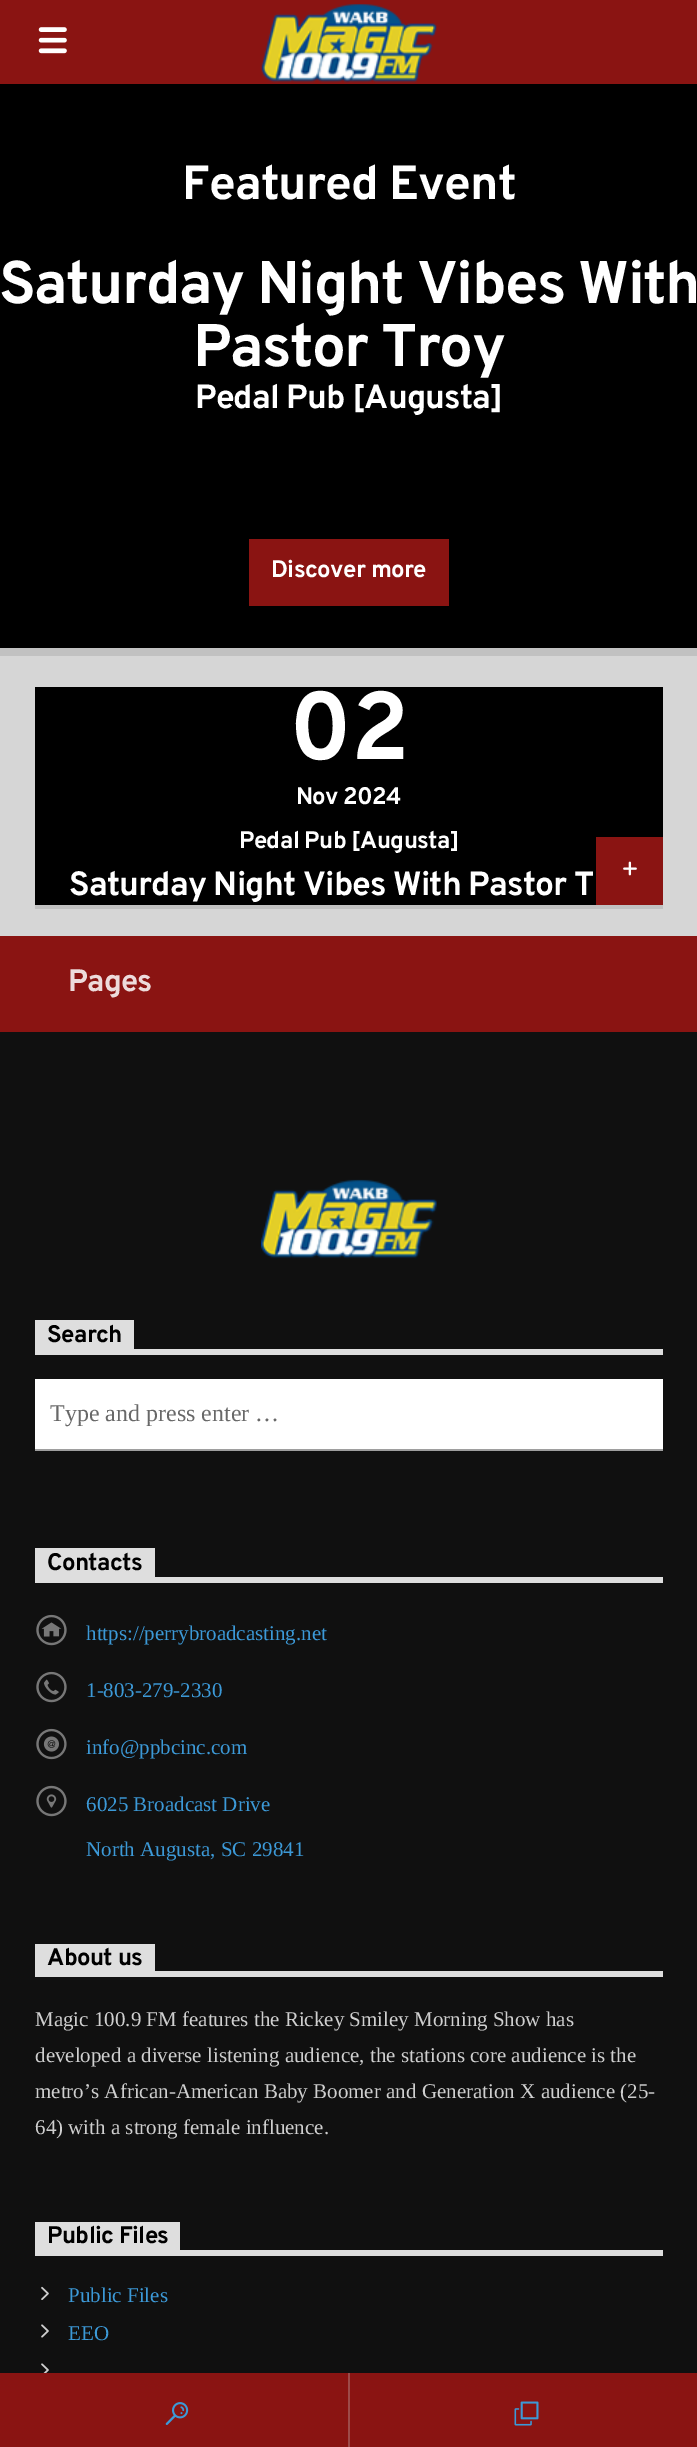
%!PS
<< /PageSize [697 2447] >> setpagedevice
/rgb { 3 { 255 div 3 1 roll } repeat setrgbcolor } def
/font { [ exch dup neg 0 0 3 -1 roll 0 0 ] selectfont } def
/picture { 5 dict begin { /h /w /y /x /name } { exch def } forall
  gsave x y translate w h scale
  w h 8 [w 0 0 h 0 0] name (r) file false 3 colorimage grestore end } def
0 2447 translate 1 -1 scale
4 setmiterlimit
214 214 214 rgb
0 0 697 2447 rectfill
138 20 18 rgb
0 0 697 84 rectfill
(img/1.rgb) 38 27 29 27 picture
(img/2.rgb) 261 4 176 79 picture
[
  [0 648 697 8 193 193 193]
  [0 84 697 564 0 0 0]
  [249 539 200 67 138 20 18]
  [35 905 628 4 193 193 193]
  [35 687 628 218 0 0 0]
  [596 837 67 68 138 20 18]
] { aload pop rgb rectfill } forall
(img/3.rgb) 623 861 14 15 picture
0 936 697 96 rectfill
16 16 16 rgb
0 1032 697 1341 rectfill
(img/4.rgb) 261 1179 176 80 picture
[
  [35 1349 628 6 222 222 222]
  [35 1320 99 29 222 222 222]
  [35 1379 628 70 255 255 255]
  [35 1449 628 2 158 158 158]
  [35 1577 628 6 222 222 222]
  [35 1548 120 29 222 222 222]
] { aload pop rgb rectfill } forall
(img/5.rgb) 36 1614 31 32 picture
(img/6.rgb) 36 1671 31 32 picture
(img/7.rgb) 36 1728 31 32 picture
(img/8.rgb) 36 1785 31 32 picture
[
  [35 1971 628 6 222 222 222]
  [35 1944 120 27 222 222 222]
  [35 2250 628 6 222 222 222]
  [35 2222 145 28 222 222 222]
] { aload pop rgb rectfill } forall
(img/9.rgb) 41 2286 8 14 picture
(img/10.rgb) 41 2324 8 14 picture
(img/11.rgb) 41 2363 8 10 picture
138 20 18 rgb
0 2373 697 74 rectfill
157 74 73 rgb
348 2373 2 74 rectfill
(img/12.rgb) 165 2402 24 23 picture
(img/13.rgb) 514 2401 25 25 picture
/Overpass-Bold 48 font
255 255 255 rgb
182 199 moveto -0.85 0 (Featured Event) ashow
/Overpass-Bold 60 font
-1 303 moveto -1.5 0 (Saturday Night Vibes With) ashow
193 366 moveto -1.5 0 (Pastor Troy) ashow
/Overpass-Bold 33.6 font
195 408 moveto -0.85 0 (Pedal Pub [Augusta]) ashow
/Overpass-Bold 24 font
271 577 moveto -0.6 0 (Discover more) ashow
/Overpass-Bold 96 font
289 759 moveto -0.75 0 (02) ashow
/Overpass-Bold 24 font
296 804 moveto -0.75 0 (Nov 2024) ashow
239 848 moveto -0.6 0 (Pedal Pub [Augusta]) ashow
/Overpass-Bold 33.6 font
69 895 moveto -0.85 0 (Saturday Night Vibes With Pastor T) ashow
/Overpass-Bold 31 font
237 219 219 rgb
68 991 moveto -0.75 0 (Pages) ashow
/Overpass-Bold 24 font
0 0 0 rgb
47 1342 moveto -0.6 0 (Search) ashow
/LiberationSerif-Regular 24 font
104 104 104 rgb
50 1421 moveto (Type and press enter …) show
/Overpass-Bold 24 font
0 0 0 rgb
47 1570 moveto -0.6 0 (Contacts) ashow
/LiberationSerif-Regular 21 font
60 153 215 rgb
[
  [(https://perrybroadcasting.net) 86 1640]
  [(1-803-279-2330) 86 1697]
  [(info@ppbcinc.com) 86 1754]
  [(6025 Broadcast Drive) 86 1811]
  [(North Augusta, SC 29841) 86 1856]
] { aload pop moveto show } forall
/Overpass-Bold 24 font
0 0 0 rgb
47 1965 moveto -0.6 0 (About us) ashow
/LiberationSerif-Regular 21 font
207 207 207 rgb
[
  [(Magic 100.9 FM features the Rickey Smiley Morning Show has) 35 2026]
  [(developed a diverse listening audience, the stations core audience is the) 35 2062]
  [(metro’s African-American Baby Boomer and Generation X audience \(25-) 35 2098]
  [(64\) with a strong female influence.) 35 2134]
] { aload pop moveto show } forall
/Overpass-Bold 24 font
0 0 0 rgb
47 2243 moveto -0.6 0 (Public Files) ashow
/LiberationSerif-Regular 21 font
60 153 215 rgb
68 2302 moveto (Public Files) show
68 2340 moveto (EEO) show
showpage
